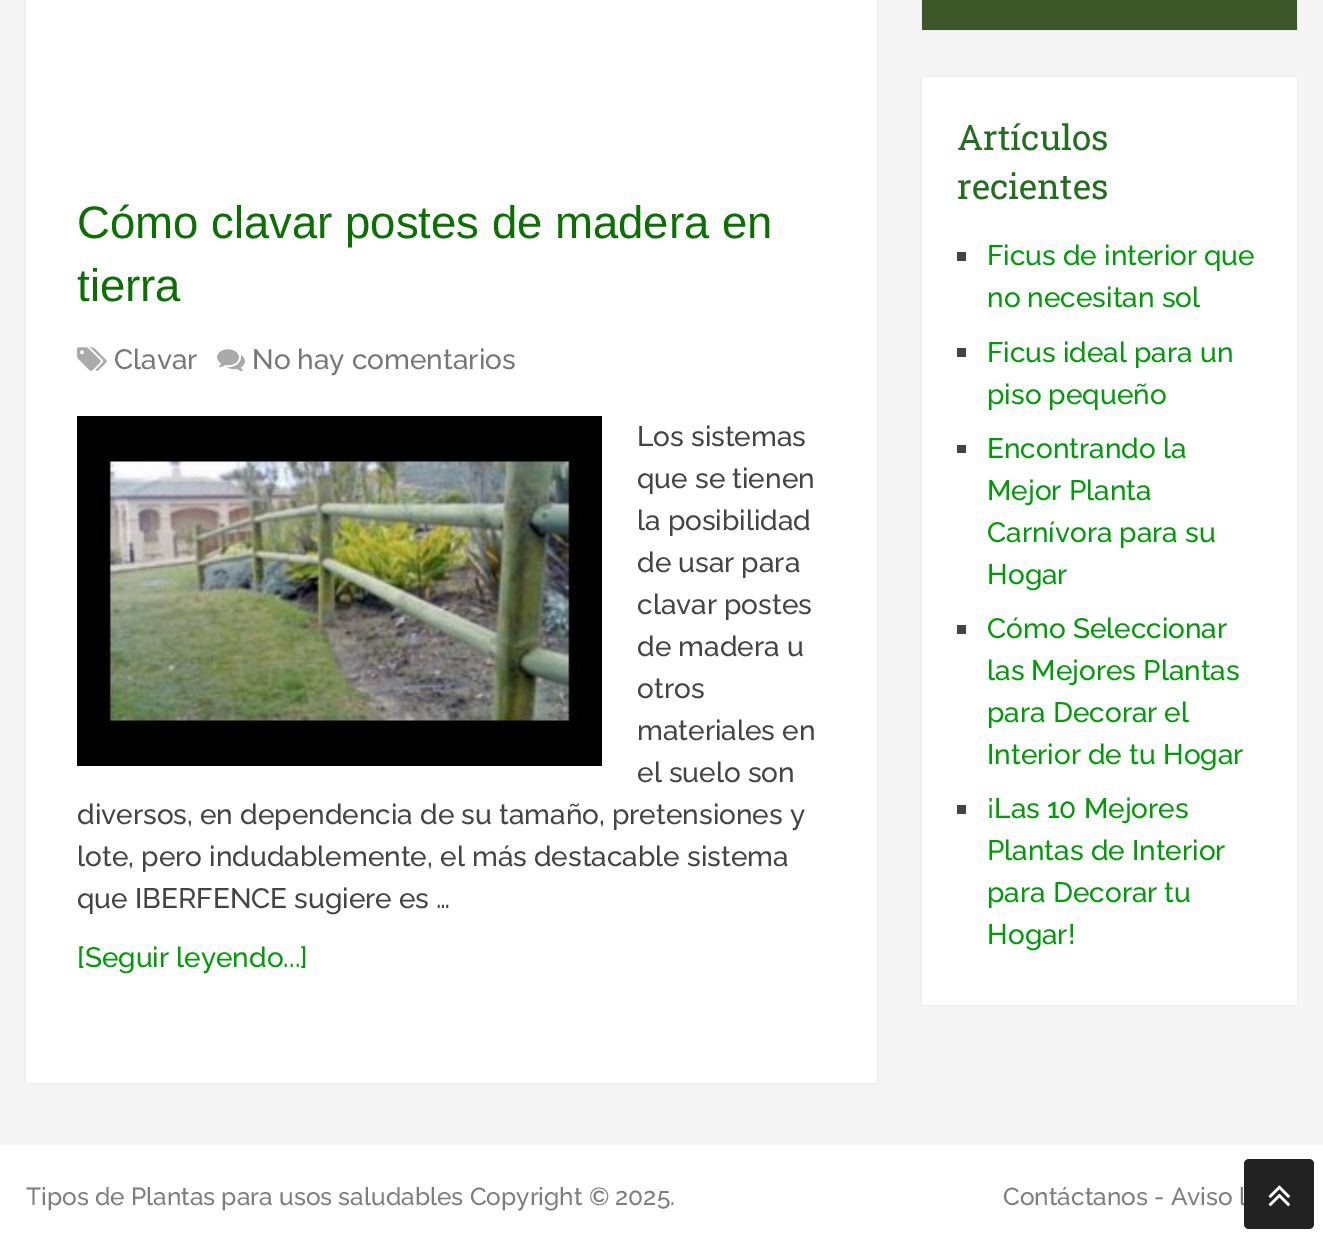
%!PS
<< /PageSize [1323 1246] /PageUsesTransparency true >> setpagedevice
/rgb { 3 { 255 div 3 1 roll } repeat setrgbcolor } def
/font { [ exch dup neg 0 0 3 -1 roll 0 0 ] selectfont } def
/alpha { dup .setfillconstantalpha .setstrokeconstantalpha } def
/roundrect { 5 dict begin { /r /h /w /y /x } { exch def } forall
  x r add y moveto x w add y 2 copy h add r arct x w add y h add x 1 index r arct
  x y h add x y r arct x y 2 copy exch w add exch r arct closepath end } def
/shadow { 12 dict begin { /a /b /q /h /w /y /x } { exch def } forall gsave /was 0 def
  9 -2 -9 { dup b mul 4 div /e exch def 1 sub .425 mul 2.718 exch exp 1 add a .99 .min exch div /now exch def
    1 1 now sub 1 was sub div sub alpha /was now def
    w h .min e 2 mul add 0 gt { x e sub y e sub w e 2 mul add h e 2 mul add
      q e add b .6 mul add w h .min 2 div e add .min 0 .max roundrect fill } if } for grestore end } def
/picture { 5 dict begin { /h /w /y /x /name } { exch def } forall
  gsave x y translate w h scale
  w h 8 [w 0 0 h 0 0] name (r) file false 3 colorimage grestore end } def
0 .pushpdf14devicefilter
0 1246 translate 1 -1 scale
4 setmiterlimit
245 245 245 rgb
0 0 1323 1246 rectfill
50 50 50 rgb
26 -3 851 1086 0 1 0.1 shadow
255 255 255 rgb
26 0 851 1083 rectfill
(img/1.rgb) 77 347 30 24 picture
(img/2.rgb) 217 349 28 23 picture
(img/3.rgb) 77 416 525 350 picture
50 50 50 rgb
922 -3 375 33 0 1 0.1 shadow
59 87 39 rgb
922 0 375 30 rectfill
50 50 50 rgb
922 77 375 928 0 1 0.1 shadow
[
  [922 77 375 928 255 255 255]
  [957 252 9 9 68 68 68]
  [957 348 9 9 68 68 68]
  [957 445 9 8 68 68 68]
  [957 625 9 9 68 68 68]
  [957 805 9 9 68 68 68]
  [0 1145 1323 101 255 255 255]
] { aload pop rgb rectfill } forall
/LiberationSans-Regular 45.5 font
10 112 1 rgb
77 238 moveto (Cómo clavar postes de madera en) show
77 301 moveto (tierra) show
/Raleway-Medium 28 font
119 119 119 rgb
114 369 moveto (Clavar) show
252 369 moveto (No hay comentarios) show
68 68 68 rgb
[
  [(Los sistemas) 637 446]
  [(que se tienen) 637 488]
  [(la posibilidad) 637 530]
  [(de usar para) 637 572]
  [(clavar postes) 637 614]
  [(de madera u) 637 656]
  [(otros) 637 698]
  [(materiales en) 637 740]
  [(el suelo son) 637 782]
  [(diversos, en dependencia de su tamaño, pretensiones y) 77 824]
  [(lote, pero indudablemente, el más destacable sistema) 77 866]
  [(que IBERFENCE sugiere es …) 77 908]
] { aload pop moveto show } forall
1 155 9 rgb
77 967 moveto ([Seguir leyendo...]) show
/RobotoSlab-Regular 35 font
34 109 30 rgb
957 150 moveto (Artículos) show
957 199 moveto (recientes) show
/Raleway-Medium 28 font
1 155 9 rgb
[
  [(Ficus de interior que) 987 265]
  [(no necesitan sol) 987 307]
  [(Ficus ideal para un) 987 362]
  [(piso pequeño) 987 404]
  [(Encontrando la) 987 458]
  [(Mejor Planta) 987 500]
  [(Carnívora para su) 987 542]
  [(Hogar) 987 584]
  [(Cómo Seleccionar) 987 638]
  [(las Mejores Plantas) 987 680]
  [(para Decorar el) 987 722]
  [(Interior de tu Hogar) 987 764]
  [(¡Las 10 Mejores) 987 818]
  [(Plantas de Interior) 987 860]
  [(para Decorar tu) 987 902]
  [(Hogar!) 987 944]
] { aload pop moveto show } forall
/Raleway-Medium 24.5 font
126 125 125 rgb
26 1205 moveto (Tipos de Plantas para usos saludables Copyright © 2025.) show
1003 1205 moveto (Contáctanos - Aviso l) show
34 34 34 rgb
1244 1159 70 70 5 roundrect fill
(img/4.rgb) 1268 1185 22 22 picture
.poppdf14devicefilter showpage
